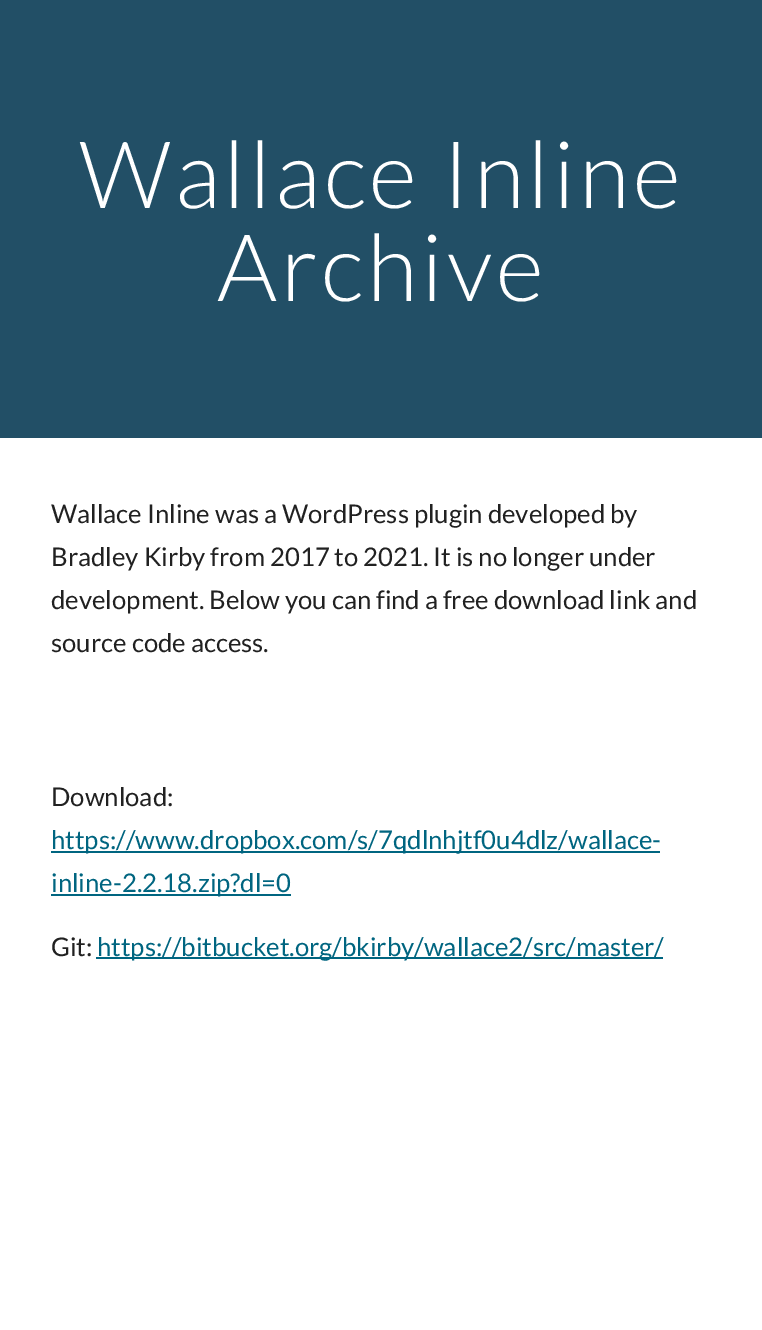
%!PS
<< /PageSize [762 1330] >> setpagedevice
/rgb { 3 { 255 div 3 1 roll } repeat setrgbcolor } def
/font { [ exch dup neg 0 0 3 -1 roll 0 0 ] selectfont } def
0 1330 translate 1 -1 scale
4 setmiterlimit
255 255 255 rgb
0 0 762 1330 rectfill
[
  [0 0 762 438 34 79 102]
  [51 851 609 2 0 101 128]
  [51 894 240 2 0 101 128]
  [96 957 567 2 0 101 128]
] { aload pop rgb rectfill } forall
/Lato-Light 93.25 font
255 255 255 rgb
79 208 moveto 3.5 0 (Wallace Inline) ashow
217 301 moveto 3.5 0 (Archive) ashow
/Lato-Regular 25.7 font
33 33 33 rgb
[
  [(Wallace Inline was a WordPress plugin developed by) 51 523]
  [(Bradley Kirby from 2017 to 2021. It is no longer under) 51 566]
  [(development. Below you can find a free download link and) 51 609]
  [(source code access.) 51 652]
  [(Download:) 51 806]
] { aload pop moveto show } forall
0 101 128 rgb
51 849 moveto (https://www.dropbox.com/s/7qdlnhjtf0u4dlz/wallace-) show
51 892 moveto (inline-2.2.18.zip?dl=0) show
33 33 33 rgb
51 956 moveto (Git:) show
0 101 128 rgb
97 956 moveto (https://bitbucket.org/bkirby/wallace2/src/master/) show
showpage
